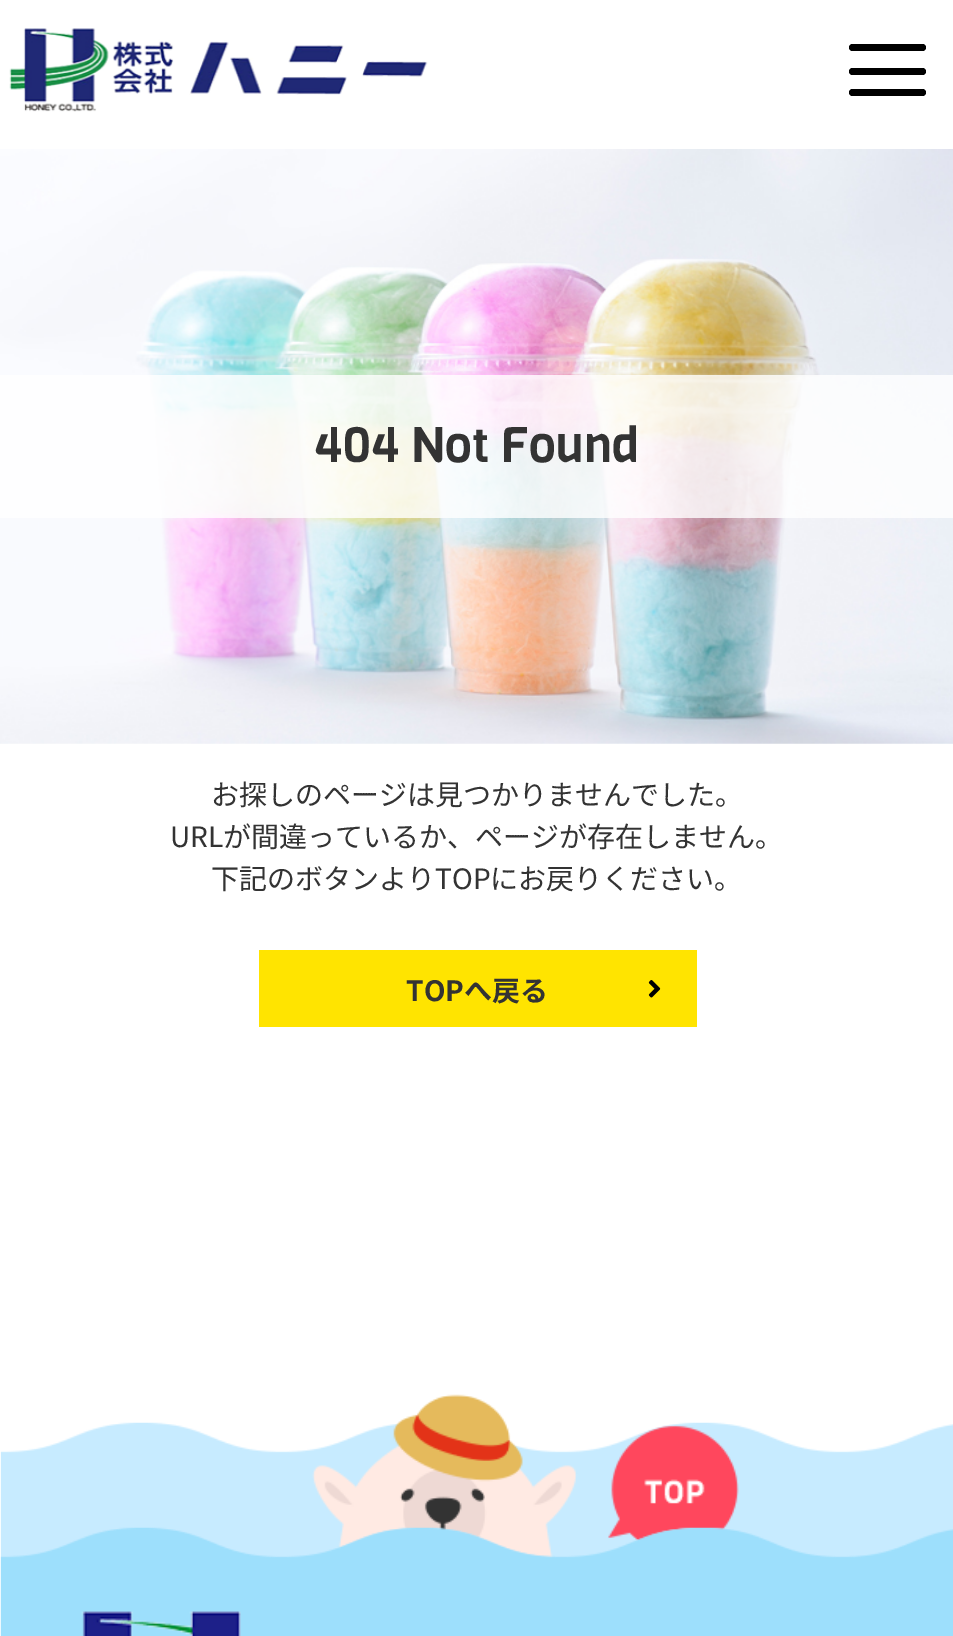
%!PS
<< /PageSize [953 1636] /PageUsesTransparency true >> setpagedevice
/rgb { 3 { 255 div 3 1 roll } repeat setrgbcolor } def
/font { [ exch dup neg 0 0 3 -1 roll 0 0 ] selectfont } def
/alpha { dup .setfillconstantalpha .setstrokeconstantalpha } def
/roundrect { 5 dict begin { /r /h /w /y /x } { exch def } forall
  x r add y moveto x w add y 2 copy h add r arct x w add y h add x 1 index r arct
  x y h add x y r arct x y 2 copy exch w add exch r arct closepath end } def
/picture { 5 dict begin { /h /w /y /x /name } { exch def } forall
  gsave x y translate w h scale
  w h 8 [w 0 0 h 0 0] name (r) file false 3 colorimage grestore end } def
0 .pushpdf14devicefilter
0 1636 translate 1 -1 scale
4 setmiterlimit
255 255 255 rgb
0 0 953 1636 rectfill
(img/1.rgb) 9 28 419 84 picture
0 0 0 rgb
849 44 77 7 3.5 roundrect fill
849 68 77 7 3.5 roundrect fill
849 89 77 7 3.5 roundrect fill
(img/2.rgb) 0 149 953 595 picture
0.8 alpha
255 255 255 rgb
0 375 953 143 rectfill
1 alpha
255 228 0 rgb
259 950 438 77 rectfill
(img/3.rgb) 648 980 13 18 picture
(img/5.rgb) 0 1422 953 214 picture
(img/4.rgb) 312 1394 427 164 picture
(img/6.rgb) 0 1527 953 109 picture
(img/7.rgb) 81 1611 160 25 picture
/Viga-Regular 49 font
51 51 51 rgb
314 462 moveto (404 Not Found) show
/NotoSansJP-Regular 28 font
[
  [(お探しのページは見つかりませんでした。) 211 805]
  [(URLが間違っているか、ページが存在しません。) 170 847]
  [(下記のボタンよりTOPにお戻りください。) 211 889]
] { aload pop moveto show } forall
/NotoSansJP-Bold 28 font
406 1001 moveto (TOPへ戻る) show
.poppdf14devicefilter showpage
